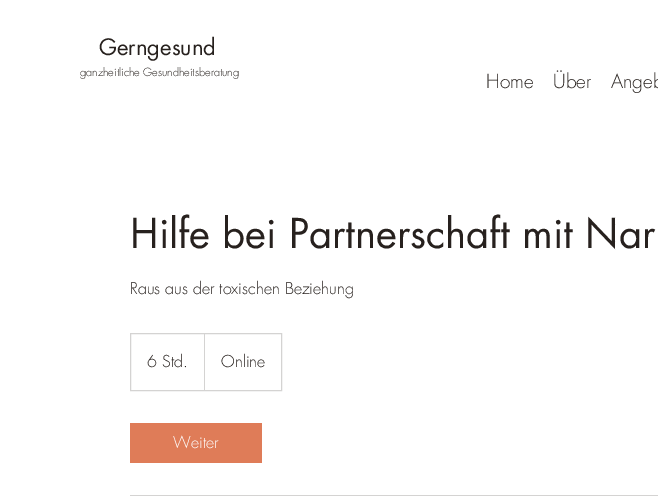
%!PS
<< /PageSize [658 501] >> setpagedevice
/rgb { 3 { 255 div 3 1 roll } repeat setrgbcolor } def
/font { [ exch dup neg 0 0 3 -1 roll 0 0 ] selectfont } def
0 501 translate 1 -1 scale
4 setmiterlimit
255 255 255 rgb
0 0 658 501 rectfill
212 211 210 rgb
130.5 333.5 151 57 rectstroke
204 390 moveto 204 333 lineto 205 334 lineto 205 390 lineto closepath fill
223 124 88 rgb
130 423 132 40 rectfill
212 211 210 rgb
130 495 528 1 rectfill
/futura-Regular 22 font
39 33 30 rgb
99 55 moveto (Gerngesund) show
/futura-Light 11 font
80 76 moveto (ganzheitliche Gesundheitsberatung) show
/futura-Light 19 font
[
  [(Home) 486 88]
  [(Über) 553 88]
  [(Angeb) 611 88]
] { aload pop moveto show } forall
/futura-Regular 40 font
130 248 moveto (Hilfe bei Partnerschaft mit Nar) show
/futura-Light 16 font
[
  [(Raus aus der toxischen Beziehung) 130 294]
  [(6 Std.) 147 367]
  [(Online) 221 367]
] { aload pop moveto show } forall
255 255 255 rgb
173 448 moveto (Weiter) show
showpage
